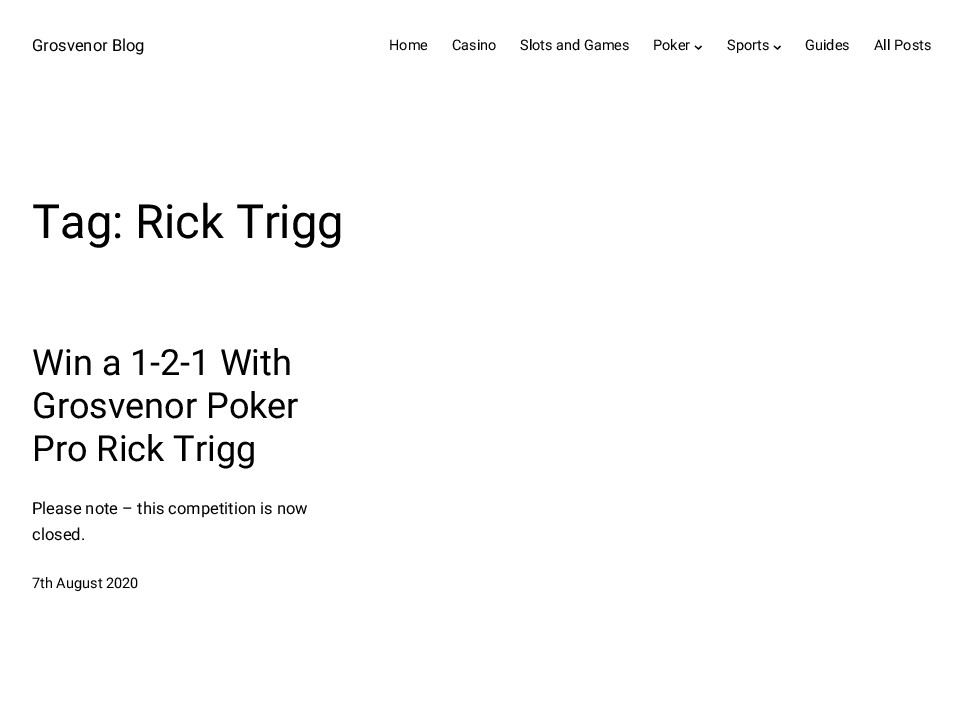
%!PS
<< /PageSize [963 716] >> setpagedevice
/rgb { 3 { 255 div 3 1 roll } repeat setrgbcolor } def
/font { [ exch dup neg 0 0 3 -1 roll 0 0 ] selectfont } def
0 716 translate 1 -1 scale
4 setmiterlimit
255 255 255 rgb
0 0 963 716 rectfill
0 0 0 rgb
1.1 setlinewidth
695 46 moveto 698.5 49 lineto 701.5 46 lineto stroke
774 46 moveto 777.5 49 lineto 780.5 46 lineto stroke
/Roboto-Regular 16.5 font
32 51 moveto (Grosvenor Blog) show
/Roboto-Regular 14.5 font
[
  [(Home) 389 50]
  [(Casino) 452 50]
  [(Slots and Games) 520 50]
  [(Poker) 653 50]
  [(Sports) 727 50]
  [(Guides) 805 50]
  [(All Posts) 874 50]
] { aload pop moveto show } forall
/Roboto-Regular 47 font
32 238 moveto (Tag: Rick Trigg) show
/Roboto-Regular 36 font
[
  [(Win a 1-2-1 With) 32 375]
  [(Grosvenor Poker) 32 418]
  [(Pro Rick Trigg) 32 461]
] { aload pop moveto show } forall
/Roboto-Regular 16.5 font
32 514 moveto (Please note – this competition is now) show
32 540 moveto (closed.) show
/Roboto-Regular 14.5 font
32 588 moveto (7th August 2020) show
showpage
